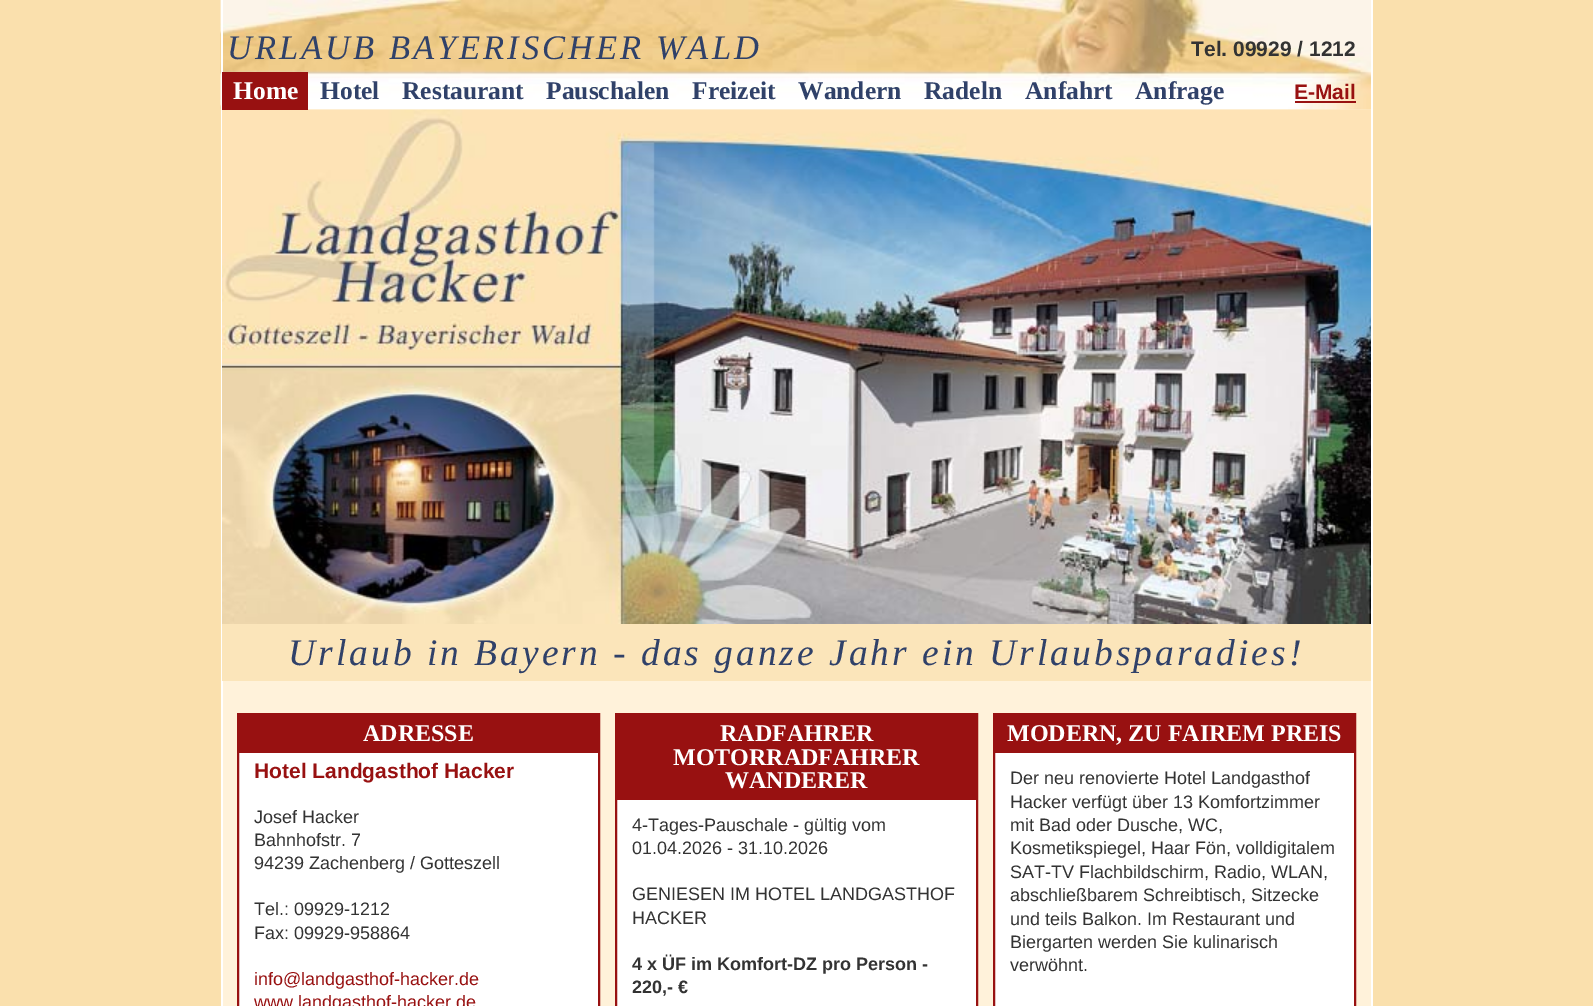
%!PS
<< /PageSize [1593 1006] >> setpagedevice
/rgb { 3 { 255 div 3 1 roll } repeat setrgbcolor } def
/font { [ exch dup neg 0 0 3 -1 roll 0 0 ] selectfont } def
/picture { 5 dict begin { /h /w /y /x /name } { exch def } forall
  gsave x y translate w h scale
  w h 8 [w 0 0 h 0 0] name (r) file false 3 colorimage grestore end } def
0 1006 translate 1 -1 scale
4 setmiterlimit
250 224 173 rgb
0 0 1593 1006 rectfill
255 242 218 rgb
223 109 1148 897 rectfill
(img/1.rgb) 220 0 1151 110 picture
255 255 255 rgb
1371 0 2 1006 rectfill
221 0 2 110 rectfill
(img/2.rgb) 222 109 1149 515 picture
[
  [222 72 86 38 152 17 17]
  [1295 101 61 2 152 17 17]
  [221 110 1 514 255 255 255]
  [221 624 2 382 255 255 255]
  [222 624 1149 57 251 229 186]
  [239 753 359 253 255 255 255]
] { aload pop rgb rectfill } forall
152 17 17 rgb
2 setlinewidth
238 714 361 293 rectstroke
239 715 359 38 rectfill
255 255 255 rgb
617 800 359 206 rectfill
152 17 17 rgb
616 714 361 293 rectstroke
617 715 359 85 rectfill
255 255 255 rgb
995 753 359 253 rectfill
152 17 17 rgb
994 714 361 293 rectstroke
995 715 359 38 rectfill
/LiberationSerif-Italic 34.5 font
48 65 105 rgb
227 59 moveto 3 0 (URLAUB BAYERISCHER WALD) ashow
/LiberationSans-Bold 21 font
51 51 51 rgb
1191 56 moveto (Tel. 09929 / 1212) show
/LiberationSerif-Bold 25.5 font
255 255 255 rgb
233 99 moveto (Home) show
48 65 105 rgb
[
  [(Hotel) 320 99]
  [(Restaurant) 402 99]
  [(Pauschalen) 546 99]
  [(Freizeit) 692 99]
  [(Wandern) 798 99]
  [(Radeln) 924 99]
  [(Anfahrt) 1025 99]
  [(Anfrage) 1135 99]
] { aload pop moveto show } forall
/LiberationSans-Bold 21 font
152 17 17 rgb
1294 99 moveto (E-Mail) show
/LiberationSerif-Italic 37.5 font
48 65 105 rgb
288 665 moveto 3 0 (Urlaub in Bayern - das ganze Jahr ein Urlaubsparadies!) ashow
/LiberationSerif-Bold 24 font
255 255 255 rgb
363 741 moveto (ADRESSE) show
/LiberationSans-Bold 21 font
152 17 17 rgb
254 778 moveto (Hotel Landgasthof Hacker) show
/LiberationSans-Regular 18 font
51 51 51 rgb
[
  [(Josef Hacker) 254 823]
  [(Bahnhofstr. 7) 254 846]
  [(94239 Zachenberg / Gotteszell) 254 869]
  [(Tel.: 09929-1212) 254 915]
  [(Fax: 09929-958864) 254 939]
] { aload pop moveto show } forall
152 17 17 rgb
254 985 moveto (info@landgasthof-hacker.de) show
254 1008 moveto (www.landgasthof-hacker.de) show
/LiberationSerif-Bold 24 font
255 255 255 rgb
[
  [(RADFAHRER) 720 741]
  [(MOTORRADFAHRER) 673 765]
  [(WANDERER) 725 788]
] { aload pop moveto show } forall
/LiberationSans-Regular 18 font
51 51 51 rgb
[
  [(4-Tages-Pauschale - gültig vom) 632 831]
  [(01.04.2026 - 31.10.2026) 632 854]
  [(GENIESEN IM HOTEL LANDGASTHOF) 632 900]
  [(HACKER) 632 924]
] { aload pop moveto show } forall
/LiberationSans-Bold 18 font
632 970 moveto (4 x ÜF im Komfort-DZ pro Person -) show
632 993 moveto (220,- €) show
/LiberationSerif-Bold 24 font
255 255 255 rgb
1007 741 moveto (MODERN, ZU FAIREM PREIS) show
/LiberationSans-Regular 18 font
51 51 51 rgb
[
  [(Der neu renovierte Hotel Landgasthof) 1010 784]
  [(Hacker verfügt über 13 Komfortzimmer) 1010 808]
  [(mit Bad oder Dusche, WC,) 1010 831]
  [(Kosmetikspiegel, Haar Fön, volldigitalem) 1010 854]
  [(SAT-TV Flachbildschirm, Radio, WLAN,) 1010 878]
  [(abschließbarem Schreibtisch, Sitzecke) 1010 901]
  [(und teils Balkon. Im Restaurant und) 1010 925]
  [(Biergarten werden Sie kulinarisch) 1010 948]
  [(verwöhnt.) 1010 971]
] { aload pop moveto show } forall
showpage
